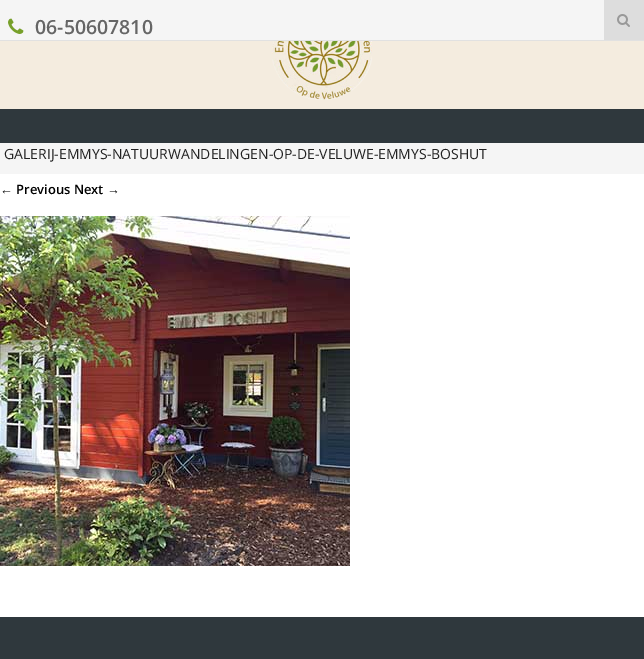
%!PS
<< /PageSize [644 659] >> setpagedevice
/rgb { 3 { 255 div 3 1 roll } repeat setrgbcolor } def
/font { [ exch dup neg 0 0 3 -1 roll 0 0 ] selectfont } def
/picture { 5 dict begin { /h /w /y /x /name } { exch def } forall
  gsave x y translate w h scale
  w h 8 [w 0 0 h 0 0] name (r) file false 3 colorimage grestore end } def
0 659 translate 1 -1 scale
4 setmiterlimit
255 255 255 rgb
0 0 644 659 rectfill
[
  [0 41 644 68 244 236 223]
  [0 0 604 40 245 245 245]
  [0 40 644 1 225 225 225]
] { aload pop rgb rectfill } forall
(img/1.rgb) 8 18 16 16 picture
221 221 221 rgb
604 0 40 40 rectfill
(img/2.rgb) 617 14 13 13 picture
(img/3.rgb) 272 41 100 59 picture
47 56 61 rgb
0 109 644 34 rectfill
245 245 245 rgb
0 143 644 31 rectfill
(img/4.rgb) 0 216 350 350 picture
47 56 61 rgb
0 617 644 42 rectfill
/OpenSans-SemiBold 19.5 font
102 102 102 rgb
35 34 moveto (06-50607810) show
/OpenSans-Regular 14 font
34 34 34 rgb
4 159 moveto (GALERIJ-EMMYS-NATUURWANDELINGEN-OP-DE-VELUWE-EMMYS-BOSHUT) show
/LiberationSans-Bold 13 font
0 0 0 rgb
0 194 moveto (←) show
/OpenSans-SemiBold 13 font
16 194 moveto (Previous Next) show
/LiberationSans-Bold 13 font
107 194 moveto (→) show
showpage
